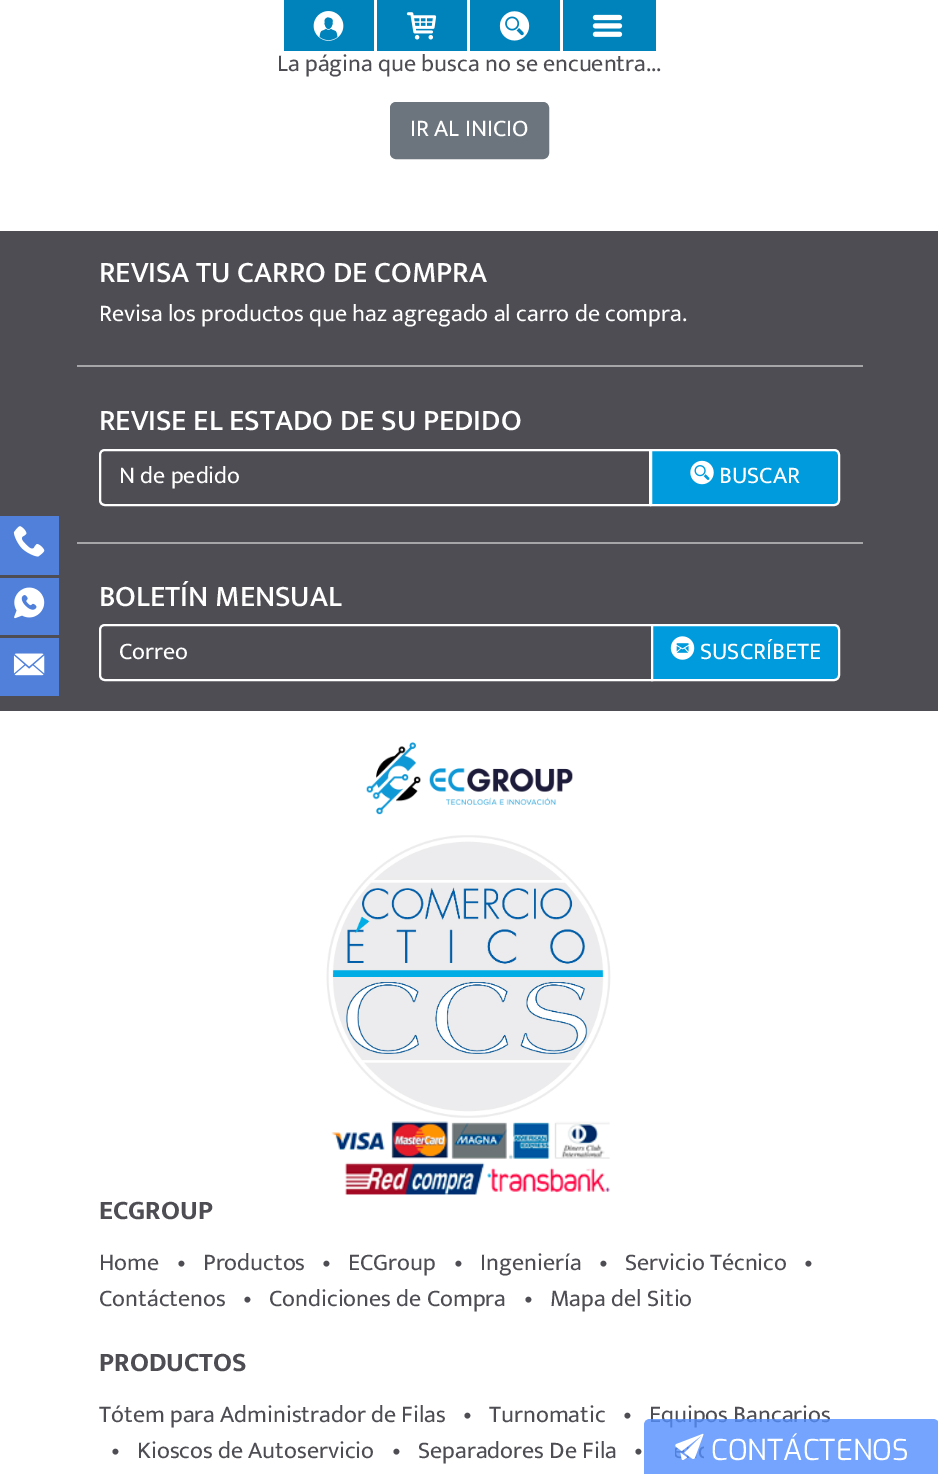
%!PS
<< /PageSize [938 1474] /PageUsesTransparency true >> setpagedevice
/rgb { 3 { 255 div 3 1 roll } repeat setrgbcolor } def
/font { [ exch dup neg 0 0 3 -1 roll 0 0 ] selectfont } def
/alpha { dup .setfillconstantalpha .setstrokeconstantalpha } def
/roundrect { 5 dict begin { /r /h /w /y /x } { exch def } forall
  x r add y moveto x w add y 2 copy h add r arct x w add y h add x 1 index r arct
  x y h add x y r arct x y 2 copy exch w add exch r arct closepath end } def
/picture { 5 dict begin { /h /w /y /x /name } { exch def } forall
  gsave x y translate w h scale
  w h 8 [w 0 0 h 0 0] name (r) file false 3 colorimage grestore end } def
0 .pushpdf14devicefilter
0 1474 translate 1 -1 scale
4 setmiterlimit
255 255 255 rgb
0 0 938 1474 rectfill
0 131 187 rgb
284 0 90 51 rectfill
(img/1.rgb) 313 11 31 30 picture
377 0 90 51 rectfill
(img/2.rgb) 406 12 31 28 picture
470 0 90 51 rectfill
(img/3.rgb) 499 11 31 30 picture
563 0 93 51 rectfill
(img/4.rgb) 592 14 31 23 picture
108 117 125 rgb
391 103 157 55 5 roundrect gsave fill grestore
2 setlinewidth
stroke
77 77 83 rgb
0 231 938 480 rectfill
80 128 218 rgb
0 516 59 59 rectfill
(img/5.rgb) 13 526 32 31 picture
0 578 59 57 rectfill
(img/6.rgb) 14 587 31 32 picture
0 638 59 58 rectfill
(img/7.rgb) 13 653 32 23 picture
166 166 169 rgb
77 365 786 2 rectfill
77 542 786 2 rectfill
255 255 255 rgb
105 450 moveto 650 450 lineto 650 505 lineto 105 505 lineto 102 505 100 503 100 500 curveto 100 455 lineto 100 452 102 450 105 450 curveto closepath stroke
0 155 221 rgb
651 450 moveto 834 450 lineto 837 450 839 452 839 455 curveto 839 500 lineto 839 503 837 505 834 505 curveto 651 505 lineto closepath gsave fill grestore
255 255 255 rgb
stroke
(img/8.rgb) 690 460 24 25 picture
105 625 moveto 652 625 lineto 652 680 lineto 105 680 lineto 102 680 100 678 100 675 curveto 100 630 lineto 100 627 102 625 105 625 curveto closepath stroke
0 155 221 rgb
652 625 moveto 834 625 lineto 837 625 839 627 839 630 curveto 839 675 lineto 839 678 837 680 834 680 curveto 652 680 lineto closepath gsave fill grestore
255 255 255 rgb
stroke
(img/9.rgb) 670 636 25 24 picture
(img/10.rgb) 366 742 207 73 picture
(img/11.rgb) 326 835 285 283 picture
(img/12.rgb) 331 1121 279 74 picture
/Mukta-Regular 24 font
77 77 83 rgb
277 71 moveto (La página que busca no se encuentra...) show
255 255 255 rgb
410 136 moveto (IR AL INICIO) show
/Mukta-Medium 30 font
99 282 moveto (REVISA TU CARRO DE COMPRA) show
/Mukta-Regular 24 font
99 321 moveto (Revisa los productos que haz agregado al carro de compra.) show
/Mukta-Medium 30 font
99 430 moveto (REVISE EL ESTADO DE SU PEDIDO) show
/Mukta-Regular 24 font
119 483 moveto (N de pedido) show
719 483 moveto (BUSCAR) show
/Mukta-Medium 30 font
99 606 moveto (BOLETÍN MENSUAL) show
/Mukta-Regular 24 font
119 659 moveto (Correo) show
700 659 moveto (SUSCRÍBETE) show
/Mukta-Bold 27 font
77 77 83 rgb
99 1219 moveto (ECGROUP) show
/Mukta-Regular 24 font
[
  [(Home) 99 1270]
  [(•) 177 1270]
  [(Productos) 203 1270]
  [(•) 322 1270]
  [(ECGroup) 348 1270]
  [(•) 454 1270]
  [(Ingeniería) 480 1270]
  [(•) 599 1270]
  [(Servicio Técnico) 625 1270]
  [(•) 804 1270]
  [(Contáctenos) 99 1306]
  [(•) 243 1306]
  [(Condiciones de Compra) 269 1306]
  [(•) 524 1306]
  [(Mapa del Sitio) 550 1306]
] { aload pop moveto show } forall
/Mukta-Bold 27 font
99 1371 moveto (PRODUCTOS) show
/Mukta-Regular 24 font
[
  [(Tótem para Administrador de Filas) 99 1422]
  [(•) 463 1422]
  [(Turnomatic) 489 1422]
  [(•) 623 1422]
  [(Equipos Bancarios) 649 1422]
  [(•) 111 1458]
  [(Kioscos de Autoservicio) 137 1458]
  [(•) 392 1458]
  [(Separadores De Fila) 418 1458]
  [(•) 634 1458]
] { aload pop moveto show } forall
0.8 alpha
81 141 252 rgb
650 1419 moveto 933 1419 lineto 936.5 1419 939 1421.5 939 1425 curveto 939 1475 lineto 644 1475 lineto 644 1425 lineto 644 1421.5 646.5 1419 650 1419 curveto closepath fill
1 alpha
(img/13.rgb) 675 1433 29 27 picture
/Exo-Regular 28.75 font
255 255 255 rgb
711 1460 moveto (CONTÁCTENOS) show
.poppdf14devicefilter showpage
